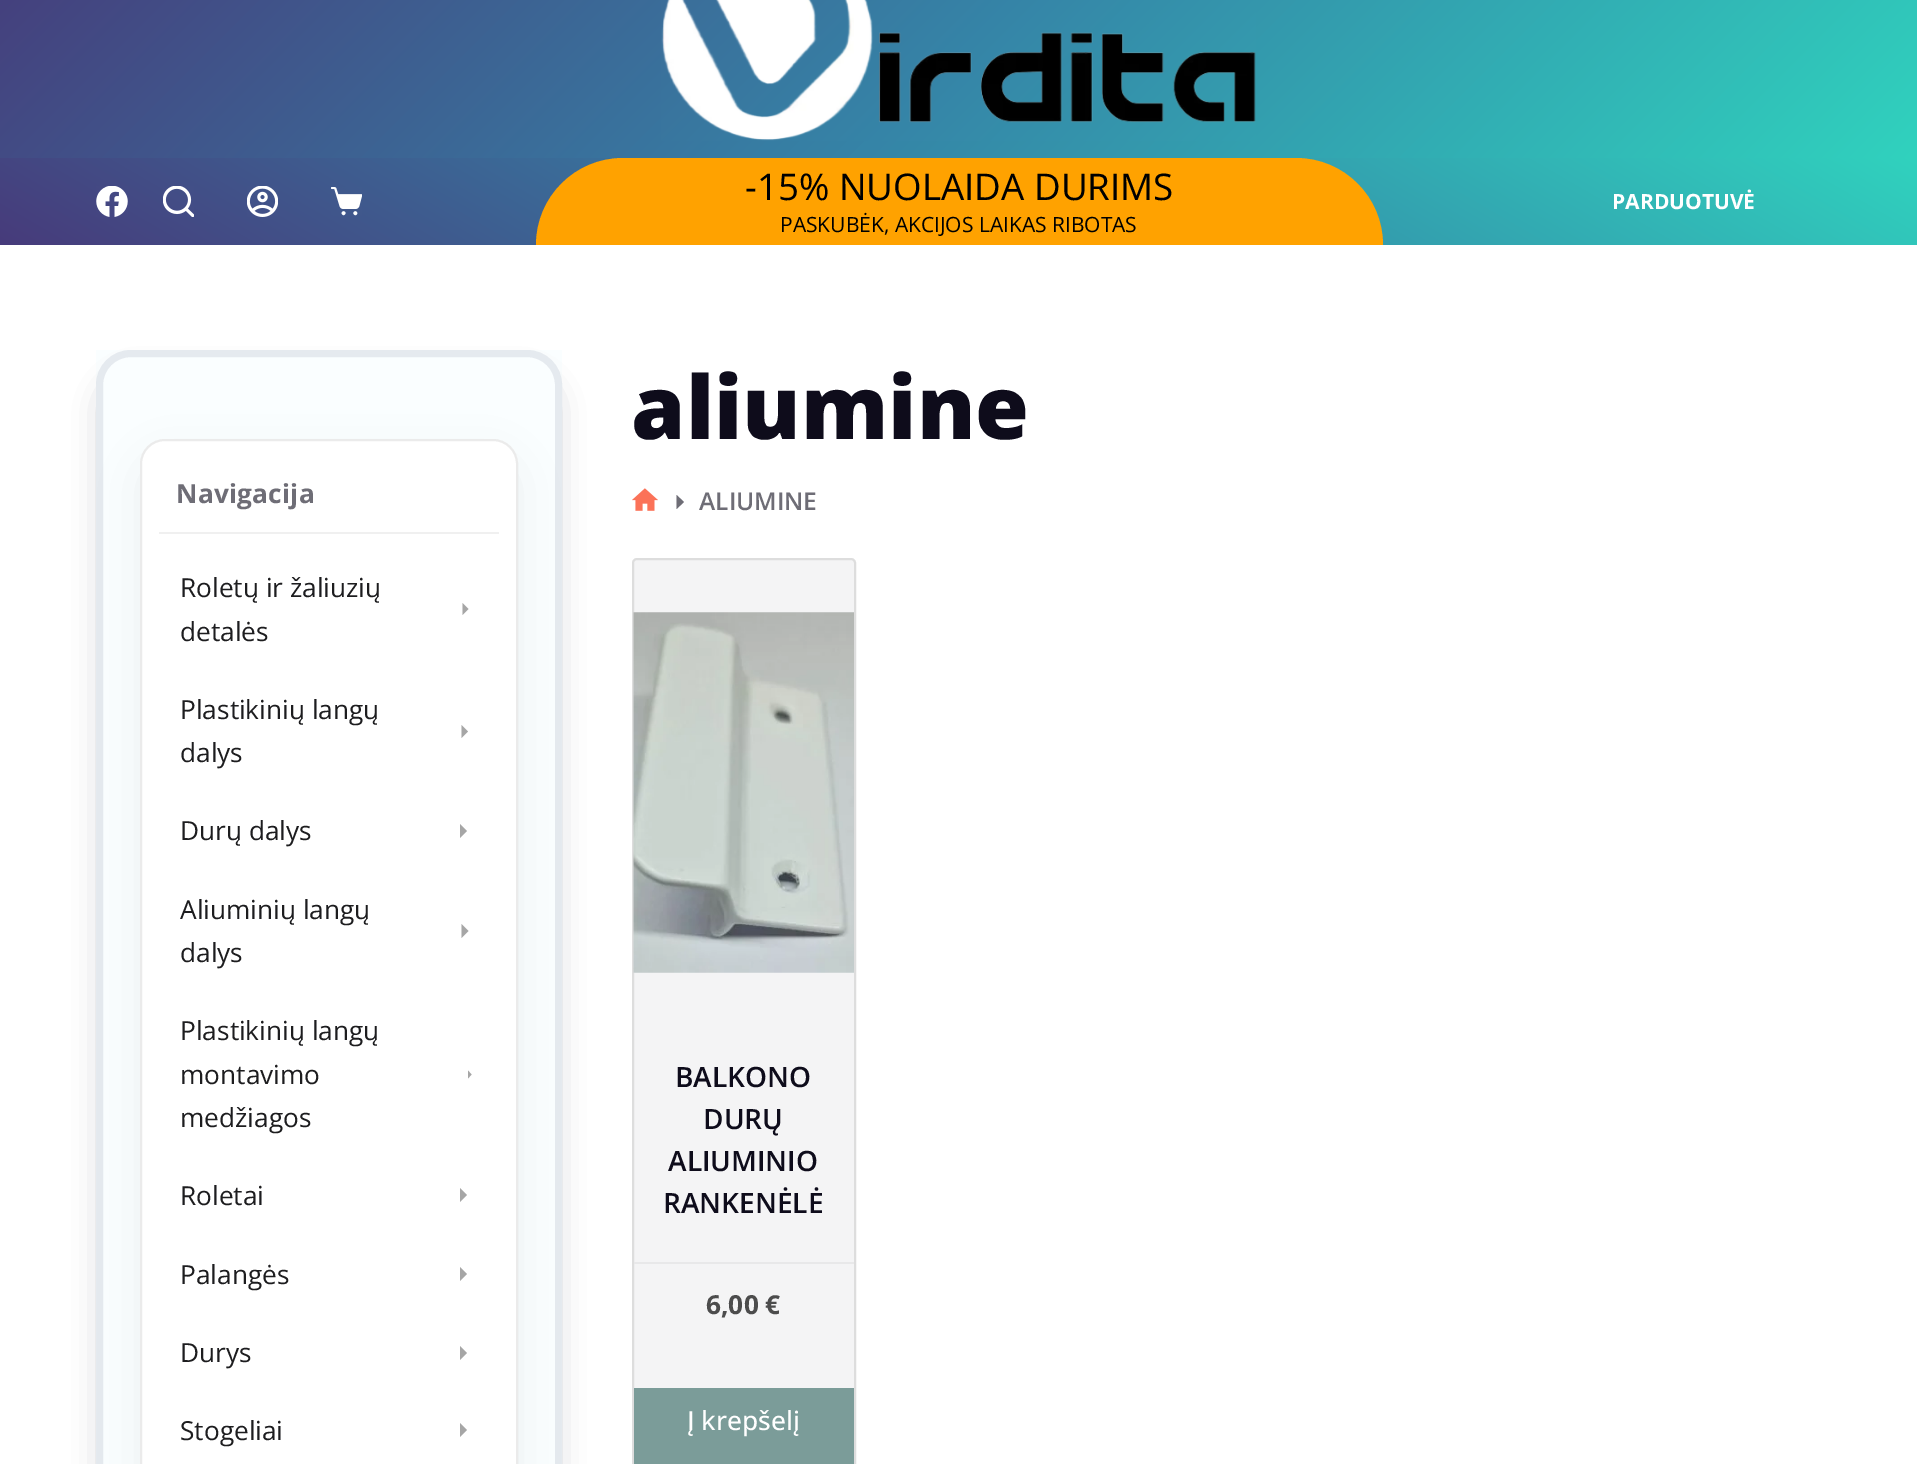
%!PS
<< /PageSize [1917 1464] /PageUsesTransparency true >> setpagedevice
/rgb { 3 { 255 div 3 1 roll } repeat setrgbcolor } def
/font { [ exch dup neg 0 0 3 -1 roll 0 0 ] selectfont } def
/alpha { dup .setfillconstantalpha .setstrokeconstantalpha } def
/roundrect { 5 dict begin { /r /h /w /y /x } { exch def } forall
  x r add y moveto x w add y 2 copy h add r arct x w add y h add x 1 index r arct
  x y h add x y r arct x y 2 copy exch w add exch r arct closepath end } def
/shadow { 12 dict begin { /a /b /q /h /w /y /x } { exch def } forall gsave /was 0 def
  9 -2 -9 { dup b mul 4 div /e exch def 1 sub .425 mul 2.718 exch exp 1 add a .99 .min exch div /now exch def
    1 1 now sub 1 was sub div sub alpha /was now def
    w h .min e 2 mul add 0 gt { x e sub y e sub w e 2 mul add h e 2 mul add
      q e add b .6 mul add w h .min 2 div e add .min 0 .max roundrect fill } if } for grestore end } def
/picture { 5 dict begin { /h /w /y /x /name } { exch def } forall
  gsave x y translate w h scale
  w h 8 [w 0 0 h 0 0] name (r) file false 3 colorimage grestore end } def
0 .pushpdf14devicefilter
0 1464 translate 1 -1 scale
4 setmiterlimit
255 255 255 rgb
0 0 1917 1464 rectfill
gsave 0 0 moveto 1917 0 lineto 1917 158 lineto 0 158 lineto closepath clip newpath
<< /ShadingType 2 /ColorSpace /DeviceRGB /Coords [418 -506 1500 576] /Extend [true true] /Function << /FunctionType 3 /Domain [0 1] /Functions [<< /FunctionType 2 /Domain [0 1] /C0 [0.278 0.231 0.482] /C1 [0.208 0.518 0.655] /N 1 >> << /FunctionType 2 /Domain [0 1] /C0 [0.208 0.518 0.655] /C1 [0.188 0.824 0.745] /N 1 >>] /Bounds [0.51] /Encode [0 1 0 1] >> >> shfill grestore
(img/1.rgb) 661 0 595 141 picture
gsave 0 158 moveto 1917 158 lineto 1917 245 lineto 0 245 lineto closepath clip newpath
<< /ShadingType 2 /ColorSpace /DeviceRGB /Coords [700 649 1218 -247] /Extend [true true] /Function << /FunctionType 3 /Domain [0 1] /Functions [<< /FunctionType 2 /Domain [0 1] /C0 [0.278 0.231 0.482] /C1 [0.208 0.518 0.655] /N 1 >> << /FunctionType 2 /Domain [0 1] /C0 [0.208 0.518 0.655] /C1 [0.188 0.824 0.745] /N 1 >>] /Bounds [0.51] /Encode [0 1 0 1] >> >> shfill grestore
(img/2.rgb) 96 186 32 31 picture
(img/3.rgb) 163 186 31 31 picture
(img/4.rgb) 247 186 31 31 picture
(img/5.rgb) 331 187 31 29 picture
255 162 0 rgb
623 158 moveto 1296 158 lineto 1344 158 1383 197 1383 245 curveto 536 245 lineto 536 197 575 158 623 158 curveto closepath fill
gsave
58 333 moveto 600 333 lineto 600 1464 lineto 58 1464 lineto closepath 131 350 moveto 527 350 lineto 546.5 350 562 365.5 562 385 curveto 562 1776 lineto 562 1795.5 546.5 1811 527 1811 curveto 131 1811 lineto 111.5 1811 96 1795.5 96 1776 curveto 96 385 lineto 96 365.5 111.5 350 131 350 curveto closepath eoclip newpath
14 12 28 rgb
107 382 444 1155 25 16 0.26 shadow
grestore
0.04 alpha
139 219 255 rgb
96 350 466 1114 rectfill
0.8 alpha
224 229 235 rgb
7 setlinewidth
99.5 353.5 459 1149 31.5 roundrect stroke
1 alpha
0 0 0 rgb
140 457 378 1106 25 24.5 0.06 shadow
255 255 255 rgb
140 439 378 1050 25 roundrect fill
0.08 alpha
0 0 0 rgb
2 setlinewidth
141 440 376 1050 24 roundrect stroke
1 alpha
240 240 240 rgb
159 532 340 2 rectfill
166 166 166 rgb
462.5 603 moveto 468.5 609 lineto 462.5 615 lineto fill
461.5 725 moveto 468 731.5 lineto 461.5 738 lineto fill
460 824 moveto 467 831 lineto 460 838 lineto fill
461.5 924 moveto 468.5 931 lineto 461.5 938 lineto fill
468 1070.5 moveto 471.5 1074.5 lineto 468 1078.5 lineto fill
460 1188 moveto 467 1195 lineto 460 1202 lineto fill
460 1267 moveto 467 1274 lineto 460 1281 lineto fill
460 1346 moveto 467 1353 lineto 460 1360 lineto fill
460 1423 moveto 467 1430 lineto 460 1437 lineto fill
(img/6.rgb) 632 488 26 23 picture
110 109 118 rgb
676.5 495 moveto 684 502 lineto 676.5 509 lineto closepath fill
244 244 245 rgb
633 559 222 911 4 roundrect gsave fill grestore
221 221 221 rgb
stroke
(img/7.rgb) 633 612 221 361 picture
232 232 233 rgb
634 1262 220 2 rectfill
123 156 153 rgb
634 1388 220 76 rectfill
/OpenSans-Regular 36.75 font
0 0 0 rgb
745 200 moveto (-15% NUOLAIDA DURIMS) show
/OpenSans-Regular 21 font
780 232 moveto (PASKUBĖK, AKCIJOS LAIKAS RIBOTAS) show
/OpenSans-Bold 21 font
255 255 255 rgb
1612 209 moveto (PARDUOTUVĖ) show
/OpenSans-Bold 26.25 font
110 109 118 rgb
176 503 moveto 0.25 0 (Navigacija) ashow
/OpenSans-Regular 26.25 font
29 29 31 rgb
[
  [(Roletų ir žaliuzių) 180 597]
  [(detalės) 180 641]
  [(Plastikinių langų) 180 719]
  [(dalys) 180 762]
  [(Durų dalys) 180 840]
  [(Aliuminių langų) 180 919]
  [(dalys) 180 962]
  [(Plastikinių langų) 180 1040]
  [(montavimo) 180 1084]
  [(medžiagos) 180 1127]
  [(Roletai) 180 1205]
  [(Palangės) 180 1284]
  [(Durys) 180 1362]
  [(Stogeliai) 180 1440]
] { aload pop moveto show } forall
/OpenSans-ExtraBold 87.5 font
14 12 27 rgb
631 439 moveto (aliumine) show
/OpenSans-SemiBold 24.5 font
110 109 118 rgb
699 510 moveto (ALIUMINE) show
/OpenSans-SemiBold 28 font
14 12 27 rgb
[
  [(BALKONO) 675 1087]
  [(DURŲ) 703 1129]
  [(ALIUMINIO) 668 1171]
  [(RANKENĖLĖ) 663 1213]
] { aload pop moveto show } forall
/OpenSans-Bold 26.25 font
76 76 76 rgb
706 1314 moveto (6,00 €) show
/OpenSans-Medium 26.25 font
255 255 255 rgb
687 1430 moveto (Į krepšelį) show
.poppdf14devicefilter showpage
